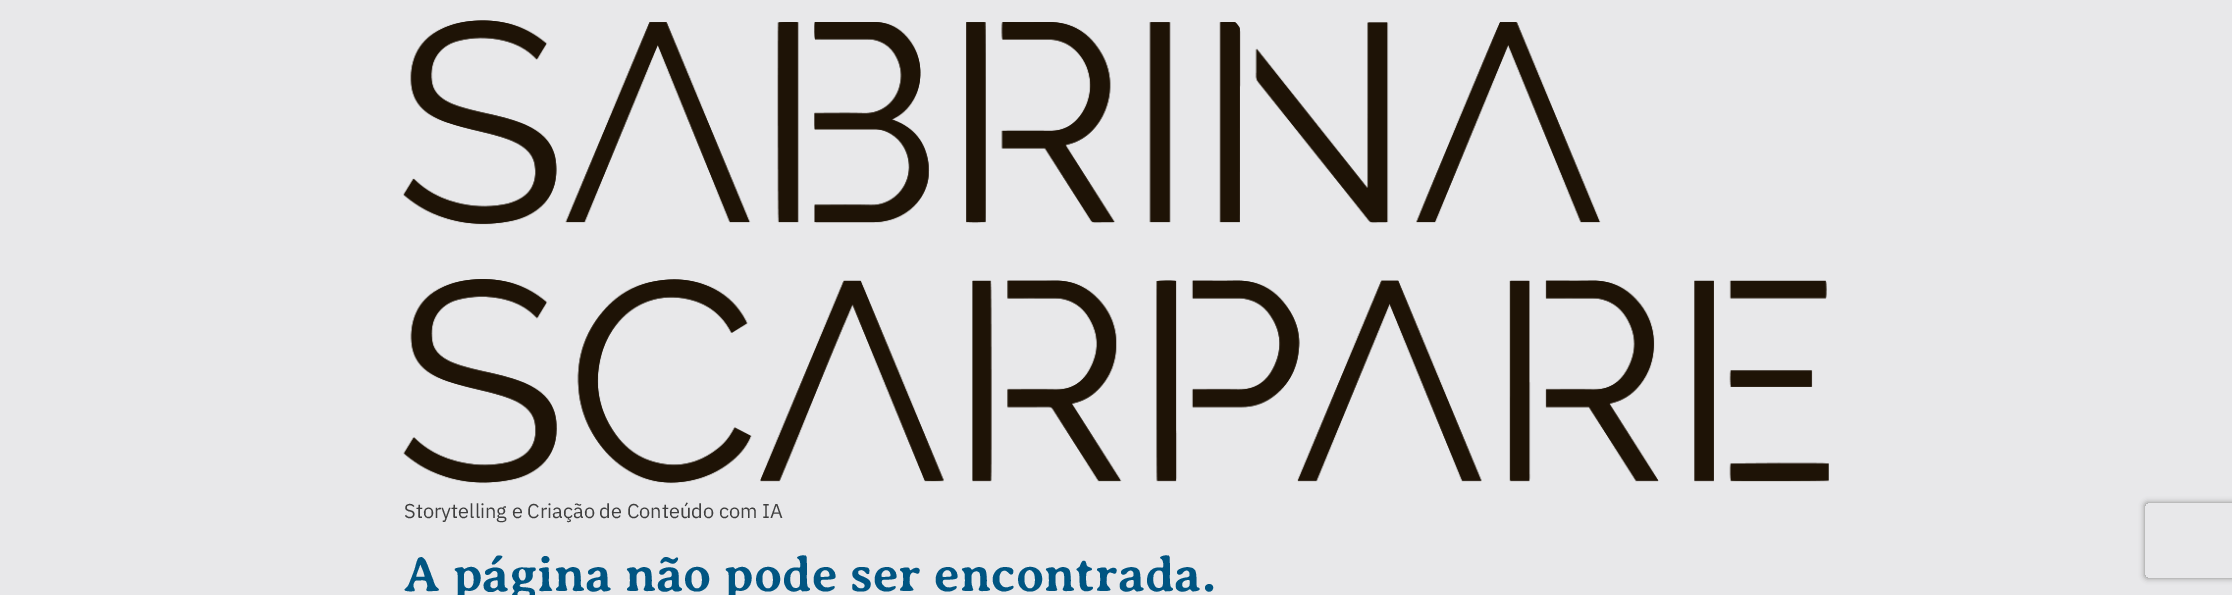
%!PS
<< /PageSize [2232 595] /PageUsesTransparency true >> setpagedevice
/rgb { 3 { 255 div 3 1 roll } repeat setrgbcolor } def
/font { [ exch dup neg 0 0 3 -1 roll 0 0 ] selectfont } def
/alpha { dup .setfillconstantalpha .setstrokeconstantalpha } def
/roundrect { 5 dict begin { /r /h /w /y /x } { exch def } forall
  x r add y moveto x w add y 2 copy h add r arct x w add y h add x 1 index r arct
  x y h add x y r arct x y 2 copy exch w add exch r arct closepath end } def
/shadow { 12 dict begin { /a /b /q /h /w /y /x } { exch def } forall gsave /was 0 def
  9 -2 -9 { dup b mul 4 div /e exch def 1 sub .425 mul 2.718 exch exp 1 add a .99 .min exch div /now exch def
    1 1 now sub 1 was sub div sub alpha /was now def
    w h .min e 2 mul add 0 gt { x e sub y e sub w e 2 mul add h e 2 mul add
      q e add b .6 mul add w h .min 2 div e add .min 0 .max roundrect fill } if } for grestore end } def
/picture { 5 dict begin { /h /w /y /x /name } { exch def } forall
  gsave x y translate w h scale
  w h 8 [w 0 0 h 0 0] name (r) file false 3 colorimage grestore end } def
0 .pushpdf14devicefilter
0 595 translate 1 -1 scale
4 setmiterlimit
232 232 234 rgb
0 0 2232 595 rectfill
(img/1.rgb) 403 20 1426 464 picture
gsave
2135 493 moveto 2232 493 lineto 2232 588 lineto 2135 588 lineto closepath 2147.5 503 moveto 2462.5 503 lineto 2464 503 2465 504 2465 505.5 curveto 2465 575.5 lineto 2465 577 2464 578 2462.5 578 curveto 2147.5 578 lineto 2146 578 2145 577 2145 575.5 curveto 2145 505.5 lineto 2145 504 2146 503 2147.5 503 curveto closepath eoclip newpath
128 128 128 rgb
2145 503 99 75 2.5 3 1 shadow
grestore
/IBMPlexSans-Regular 20 font
64 64 64 rgb
404 518 moveto (Storytelling e Criação de Conteúdo com IA) show
/AveriaSerifLibre-Bold 50 font
0 85 130 rgb
404 591 moveto (A página não pode ser encontrada.) show
.poppdf14devicefilter showpage
